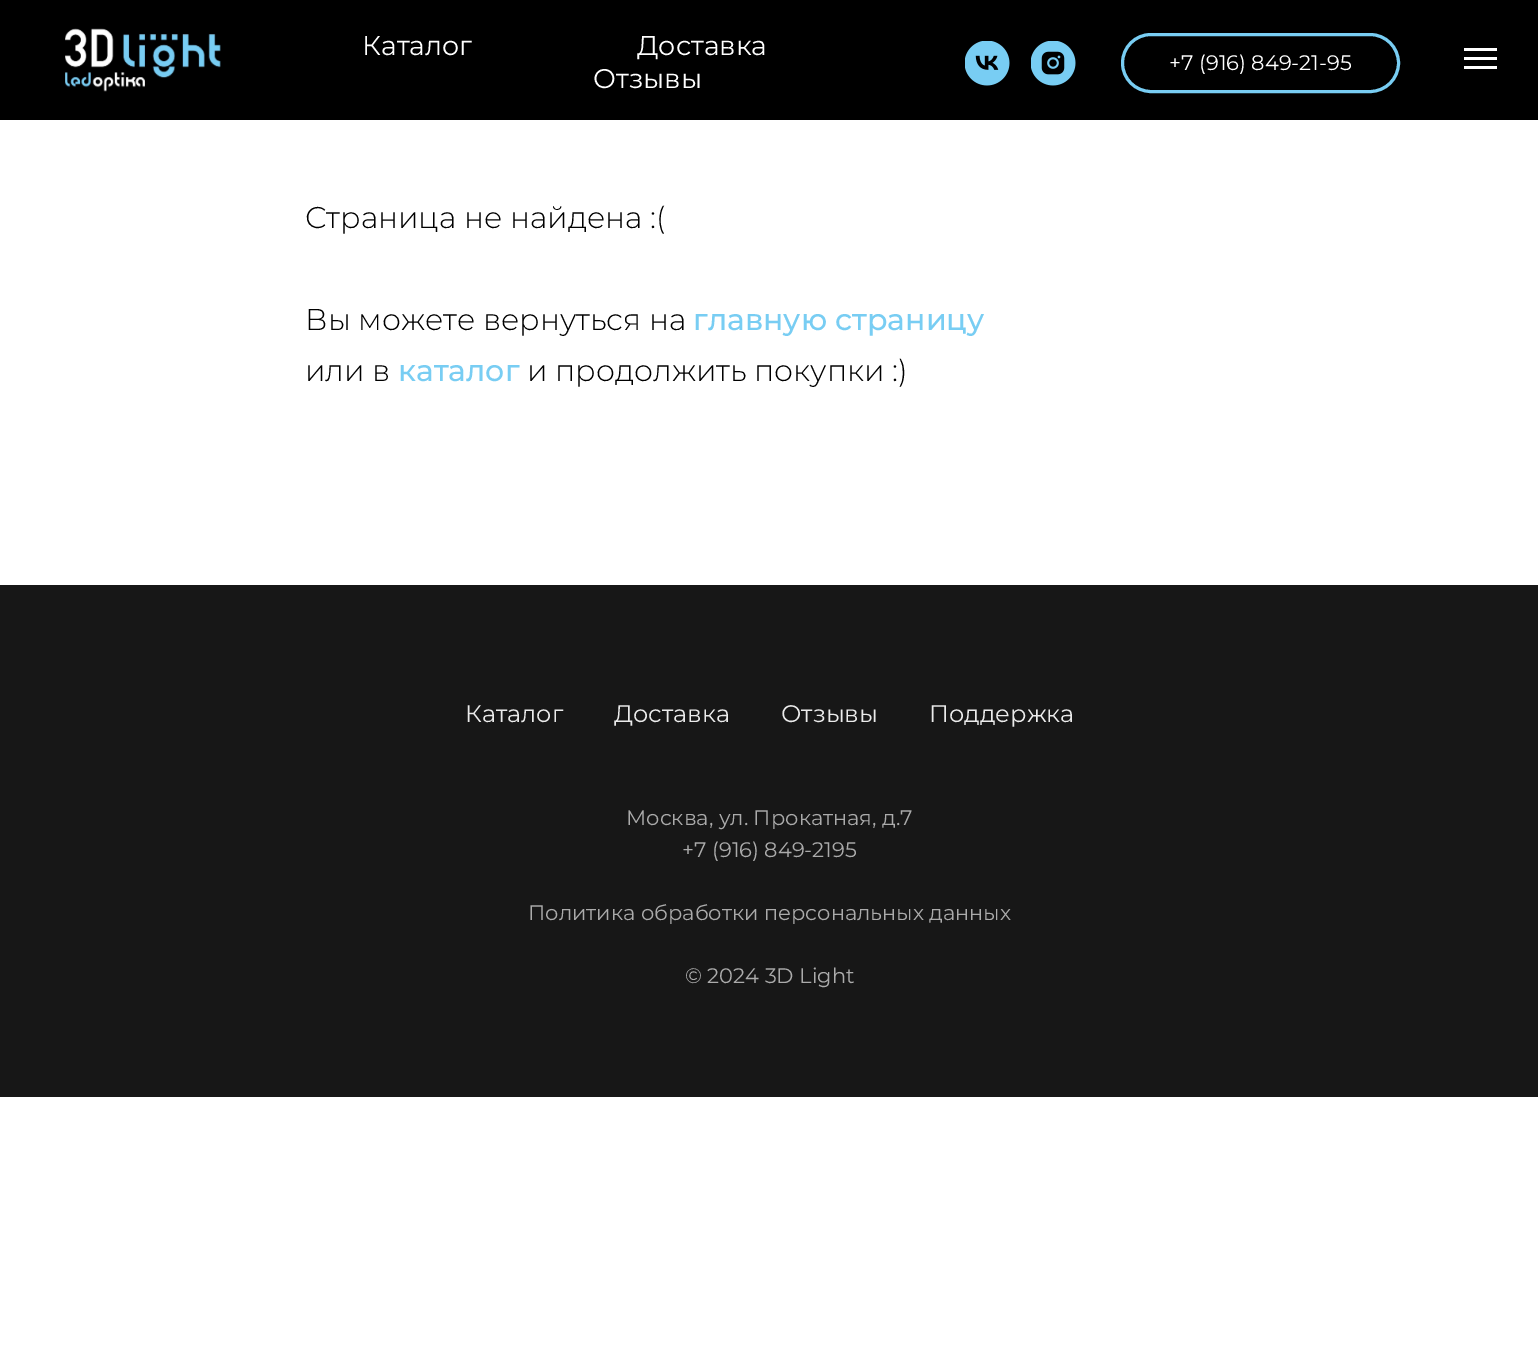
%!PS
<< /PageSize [1538 1356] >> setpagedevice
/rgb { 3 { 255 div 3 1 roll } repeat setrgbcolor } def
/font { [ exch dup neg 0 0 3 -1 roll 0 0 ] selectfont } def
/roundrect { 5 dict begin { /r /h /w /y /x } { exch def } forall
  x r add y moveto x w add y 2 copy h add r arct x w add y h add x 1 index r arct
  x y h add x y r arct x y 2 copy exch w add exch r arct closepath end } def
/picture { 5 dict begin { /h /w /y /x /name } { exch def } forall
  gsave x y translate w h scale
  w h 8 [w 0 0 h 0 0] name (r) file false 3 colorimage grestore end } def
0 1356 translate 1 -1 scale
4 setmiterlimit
255 255 255 rgb
0 0 1538 1356 rectfill
0 0 0 rgb
0 0 1538 120 rectfill
(img/1.rgb) 65 28 156 64 picture
(img/2.rgb) 965 41 45 45 picture
(img/3.rgb) 1031 41 45 45 picture
120 205 243 rgb
3 setlinewidth
1122.5 34.5 276 57 28.5 roundrect stroke
[
  [1464 48 33 3 255 255 255]
  [1464 57 33 3 255 255 255]
  [1464 66 33 3 255 255 255]
  [0 585 1538 512 23 23 23]
] { aload pop rgb rectfill } forall
/Montserrat-Regular 27 font
255 255 255 rgb
[
  [(Каталог) 362 55]
  [(Доставка) 637 55]
  [(Отзывы) 593 88]
] { aload pop moveto show } forall
/Montserrat-Regular 21 font
1169 70 moveto (+7 \(916\) 849-21-95) show
/Montserrat-Light 30 font
0 0 0 rgb
305 228 moveto (Страница не найдена :\() show
305 330 moveto (Вы можете вернуться на) show
/Montserrat-Medium 30 font
120 205 243 rgb
693 330 moveto (главную страницу) show
/Montserrat-Light 30 font
0 0 0 rgb
305 381 moveto (или в) show
/Montserrat-Medium 30 font
120 205 243 rgb
398 381 moveto (каталог) show
/Montserrat-Light 30 font
0 0 0 rgb
527 381 moveto (и продолжить покупки :\)) show
/Montserrat-Regular 24 font
235 235 235 rgb
[
  [(Каталог) 465 722]
  [(Доставка) 614 722]
  [(Отзывы) 781 722]
  [(Поддержка) 929 722]
] { aload pop moveto show } forall
/Montserrat-Regular 21 font
171 171 171 rgb
[
  [(Москва, ул. Прокатная, д.7) 626 825]
  [(+7 \(916\) 849-2195) 682 857]
  [(Политика обработки персональных данных) 528 920]
  [(© 2024 3D Light) 685 983]
] { aload pop moveto show } forall
showpage
